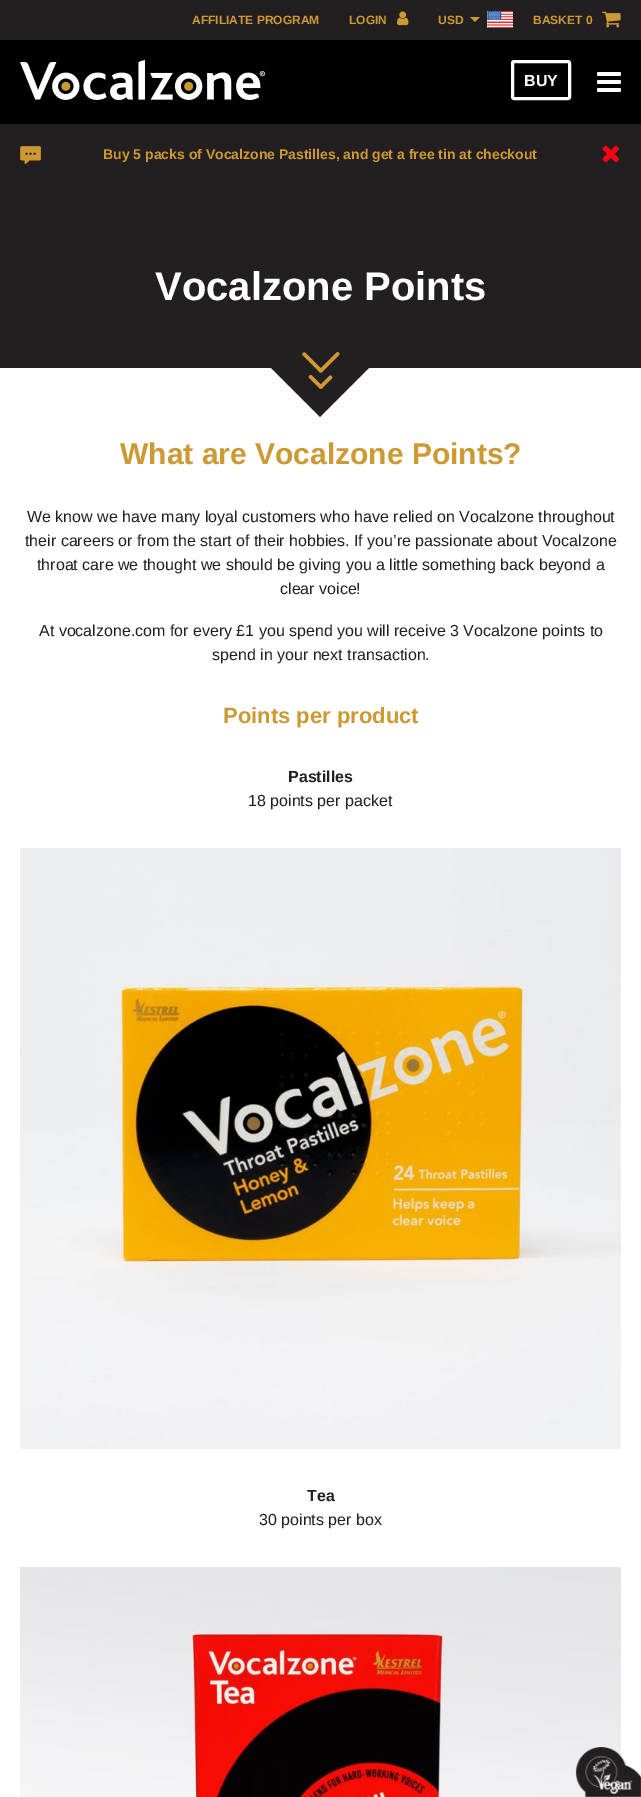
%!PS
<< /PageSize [641 1797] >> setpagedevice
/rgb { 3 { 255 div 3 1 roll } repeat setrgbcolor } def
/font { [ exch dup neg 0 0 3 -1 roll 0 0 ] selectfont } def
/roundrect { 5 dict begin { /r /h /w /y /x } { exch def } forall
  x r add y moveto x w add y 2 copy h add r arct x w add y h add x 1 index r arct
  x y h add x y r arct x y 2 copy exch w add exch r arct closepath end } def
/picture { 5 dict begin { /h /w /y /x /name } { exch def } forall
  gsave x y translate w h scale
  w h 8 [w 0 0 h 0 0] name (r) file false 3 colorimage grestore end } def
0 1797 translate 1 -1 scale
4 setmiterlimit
255 255 255 rgb
0 0 641 1797 rectfill
35 31 32 rgb
0 0 641 40 rectfill
(img/1.rgb) 397 11 12 15 picture
(img/2.rgb) 487 11 26 17 picture
204 153 51 rgb
470 17 moveto 480 17 lineto 475 22 lineto closepath fill
(img/3.rgb) 602 11 19 17 picture
0 0 0 rgb
0 40 641 84 rectfill
(img/4.rgb) 20 60 245 40 picture
255 255 255 rgb
3 setlinewidth
512.5 61.5 57 37 1.5 roundrect stroke
(img/5.rgb) 597 72 24 20 picture
35 31 32 rgb
0 124 641 244 rectfill
(img/6.rgb) 20 146 21 18 picture
(img/7.rgb) 602 145 18 18 picture
320 417 moveto 370 367 lineto 320 317 lineto 271 366 lineto 271 368 lineto closepath fill
(img/8.rgb) 302 352 38 37 picture
(img/9.rgb) 20 848 601 601 picture
(img/10.rgb) 20 1567 601 230 picture
(img/11.rgb) 575 1747 66 50 picture
/LiberationSans-Bold 12 font
204 153 51 rgb
[
  [(AFFILIATE PROGRAM) 192 24]
  [(LOGIN) 349 24]
  [(USD) 438 24]
  [(BASKET 0) 533 24]
] { aload pop moveto show } forall
/LiberationSans-Bold 16 font
255 255 255 rgb
524 86 moveto (BUY) show
/LiberationSans-Bold 14 font
204 153 51 rgb
103 159 moveto (Buy 5 packs of Vocalzone Pastilles, and get a free tin at checkout) show
/LiberationSans-Bold 40 font
255 255 255 rgb
155 300 moveto (Vocalzone Points) show
/LiberationSans-Bold 30 font
204 153 51 rgb
120 464 moveto (What are Vocalzone Points?) show
/LiberationSans-Regular 16 font
35 31 32 rgb
[
  [(We know we have many loyal customers who have relied on Vocalzone throughout) 27 522]
  [(their careers or from the start of their hobbies. If you’re passionate about Vocalzone) 25 546]
  [(throat care we thought we should be giving you a little something back beyond a) 37 570]
  [(clear voice!) 280 594]
  [(At vocalzone.com for every £1 you spend you will receive 3 Vocalzone points to) 39 636]
  [(spend in your next transaction.) 212 660]
] { aload pop moveto show } forall
/LiberationSans-Bold 22 font
204 153 51 rgb
223 723 moveto (Points per product) show
/LiberationSans-Bold 16 font
35 31 32 rgb
288 782 moveto (Pastilles) show
/LiberationSans-Regular 16 font
248 806 moveto (18 points per packet) show
/LiberationSans-Bold 16 font
307 1501 moveto (Tea) show
/LiberationSans-Regular 16 font
259 1525 moveto (30 points per box) show
showpage
